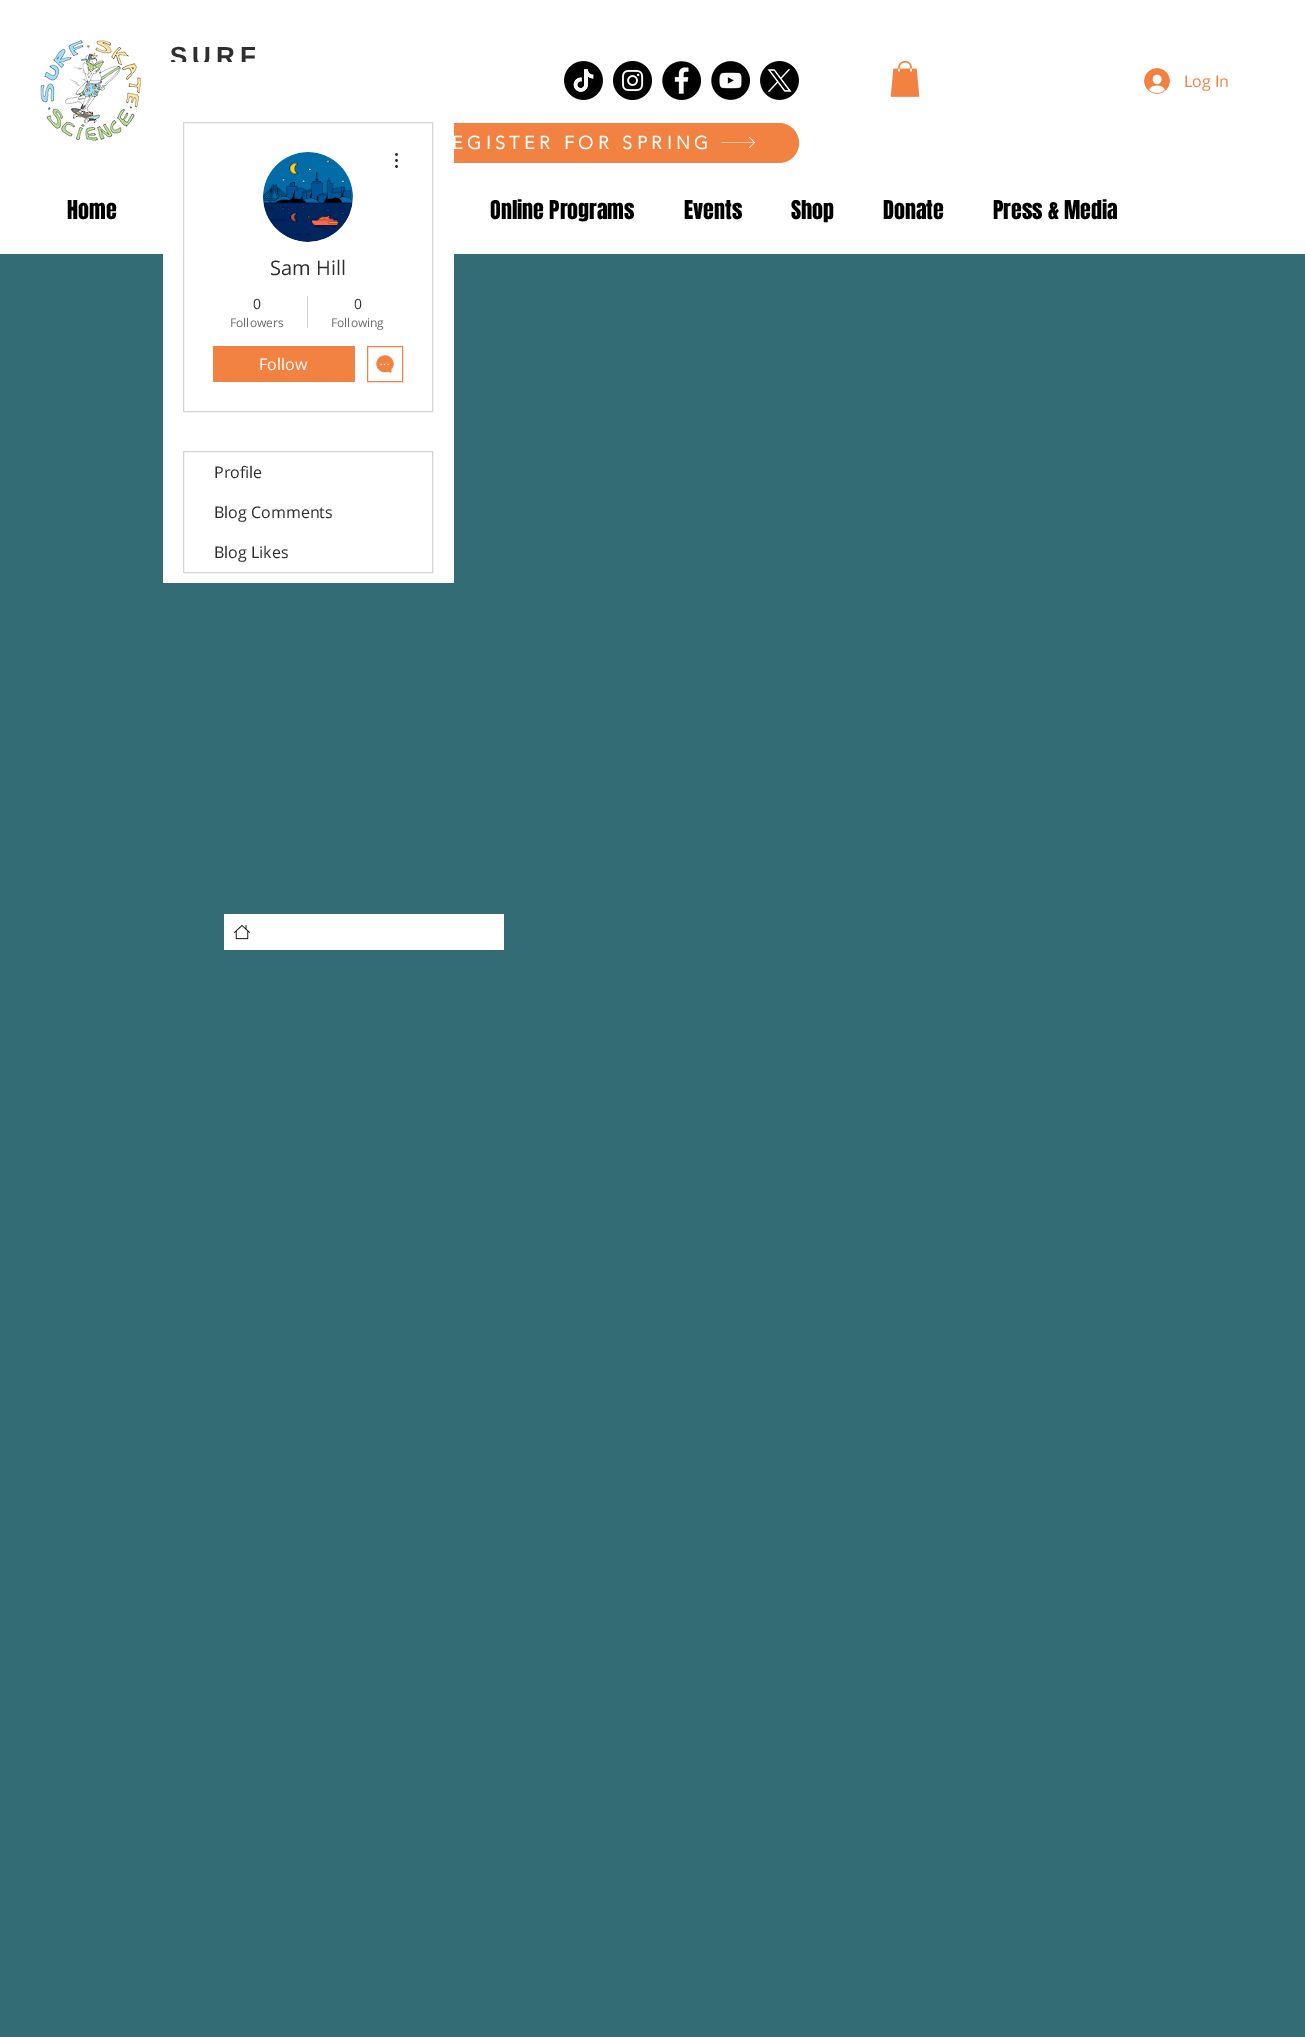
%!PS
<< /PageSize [1305 2037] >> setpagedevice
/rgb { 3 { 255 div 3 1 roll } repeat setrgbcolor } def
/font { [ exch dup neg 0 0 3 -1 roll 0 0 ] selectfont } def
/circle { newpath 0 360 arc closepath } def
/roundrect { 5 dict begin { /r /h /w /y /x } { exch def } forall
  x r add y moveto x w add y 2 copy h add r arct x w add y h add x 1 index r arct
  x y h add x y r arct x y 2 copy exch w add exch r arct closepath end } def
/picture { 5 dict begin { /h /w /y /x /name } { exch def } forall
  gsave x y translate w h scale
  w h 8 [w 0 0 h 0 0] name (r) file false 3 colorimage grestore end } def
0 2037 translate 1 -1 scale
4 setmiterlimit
52 108 118 rgb
0 0 1305 2037 rectfill
255 255 255 rgb
0 0 1305 254 rectfill
(img/1.rgb) 40 40 101 101 picture
(img/2.rgb) 564 61 39 39 picture
(img/3.rgb) 613 61 39 39 picture
(img/4.rgb) 662 61 39 39 picture
(img/5.rgb) 711 61 39 39 picture
(img/6.rgb) 760 61 39 39 picture
(img/7.rgb) 890 61 30 36 picture
(img/8.rgb) 1144 68 26 26 picture
242 130 65 rgb
396 123 403 40 20 roundrect fill
255 255 255 rgb
749.5 137 moveto 749 137.5 lineto 754 142.5 lineto 721.5 142.5 lineto 721.5 143 lineto 754 143 lineto 749 147.5 lineto 749.5 148 lineto 755 142.5 lineto closepath fill
224 914 280 36 rectfill
(img/12.rgb) 234 925 16 15 picture
/LiberationSans-Bold 26 font
47 46 46 rgb
170 65 moveto 5 0 (SURF) ashow
/OpenSans-Regular 16 font
242 130 65 rgb
1184 87 moveto (Log In) show
/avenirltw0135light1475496-Bold 18 font
255 255 255 rgb
452 149 moveto 4.5 0 (EGISTER FOR SPRING) ashow
/Anton-Regular 22 font
0 0 0 rgb
[
  [(Home) 67 219]
  [(Online Programs) 490 219]
  [(Events) 684 219]
  [(Shop) 791 219]
  [(Donate) 883 219]
  [(Press & Media) 993 219]
] { aload pop moveto show } forall
255 255 255 rgb
163 62 291 521 rectfill
213 213 213 rgb
183.5 122.5 249 289 rectstroke
216 216 216 rgb
308 197 45 circle fill
(img/9.rgb) 263 152 90 90 picture
(img/10.rgb) 395 153 3 15 picture
/OpenSans-Regular 20 font
47 46 46 rgb
270 275 moveto (Sam Hill) show
/OpenSans-Regular 14 font
253 309 moveto (0) show
/OpenSans-Regular 12 font
109 109 109 rgb
230 327 moveto (Followers) show
213 213 213 rgb
307 296 1 32 rectfill
/OpenSans-Regular 14 font
47 46 46 rgb
354 309 moveto (0) show
/OpenSans-Regular 12 font
109 109 109 rgb
331 327 moveto (Following) show
242 130 65 rgb
213 346 142 36 rectfill
/OpenSans-Regular 16 font
255 255 255 rgb
259 370 moveto (Follow) show
242 130 65 rgb
367.5 346.5 35 35 rectstroke
(img/11.rgb) 376 355 18 18 picture
213 213 213 rgb
183.5 451.5 249 121 rectstroke
47 46 46 rgb
[
  [(Profile) 214 478]
  [(Blog Comments) 214 518]
  [(Blog Likes) 214 558]
] { aload pop moveto show } forall
showpage
